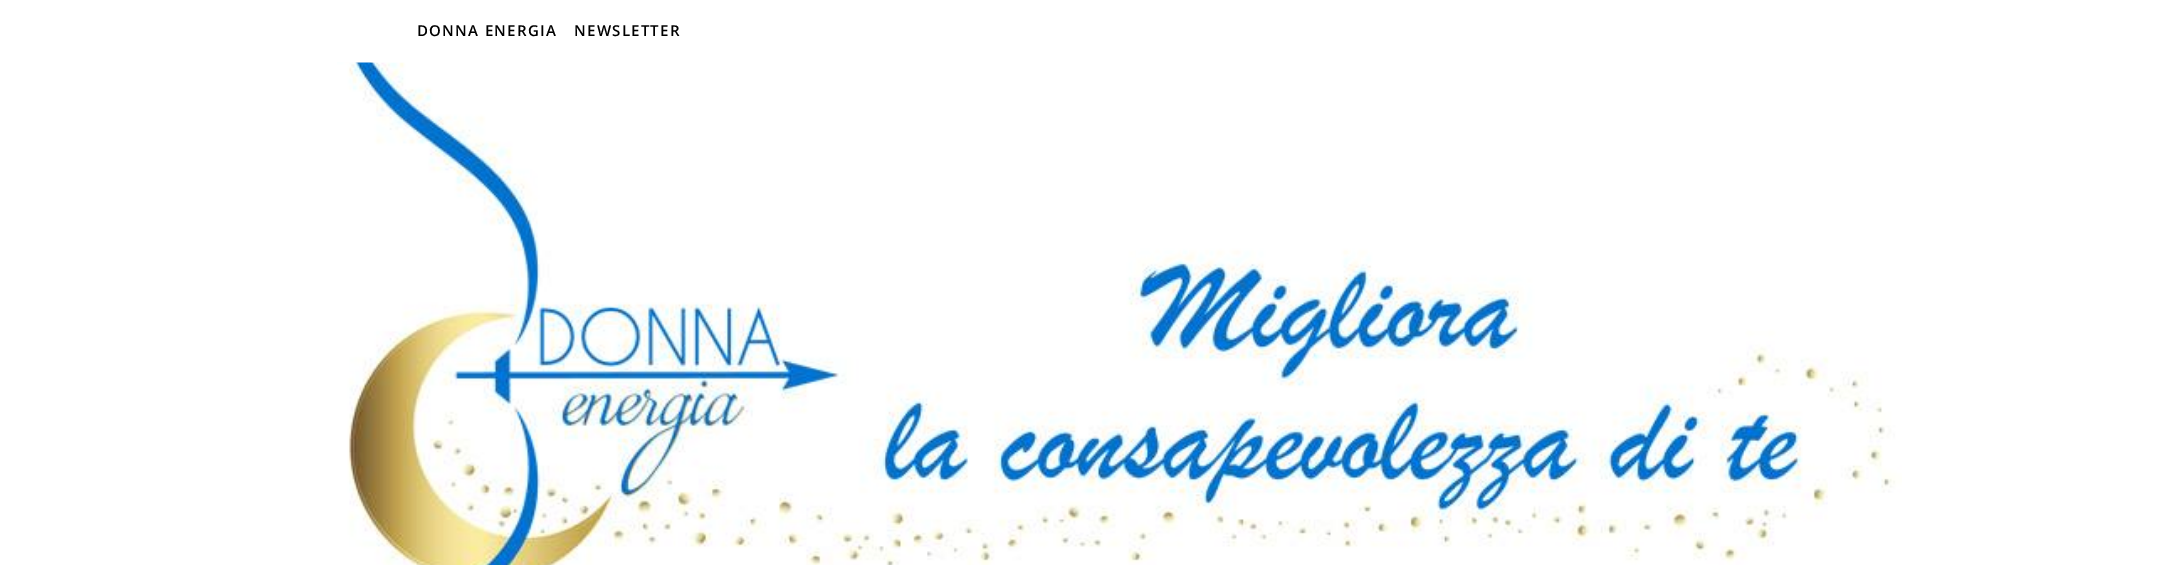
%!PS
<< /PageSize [2183 565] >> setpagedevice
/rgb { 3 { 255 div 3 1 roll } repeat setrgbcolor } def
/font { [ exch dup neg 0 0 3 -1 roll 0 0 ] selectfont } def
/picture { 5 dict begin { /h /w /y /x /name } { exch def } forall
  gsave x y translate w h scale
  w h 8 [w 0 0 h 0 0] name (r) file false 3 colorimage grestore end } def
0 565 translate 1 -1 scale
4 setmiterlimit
255 255 255 rgb
0 0 2183 565 rectfill
(img/1.rgb) 337 62 1565 503 picture
/OpenSans-SemiBold 15 font
0 0 0 rgb
417 36 moveto 1.25 0 (DONNA ENERGIA) ashow
574 36 moveto 1.25 0 (NEWSLETTER) ashow
showpage
